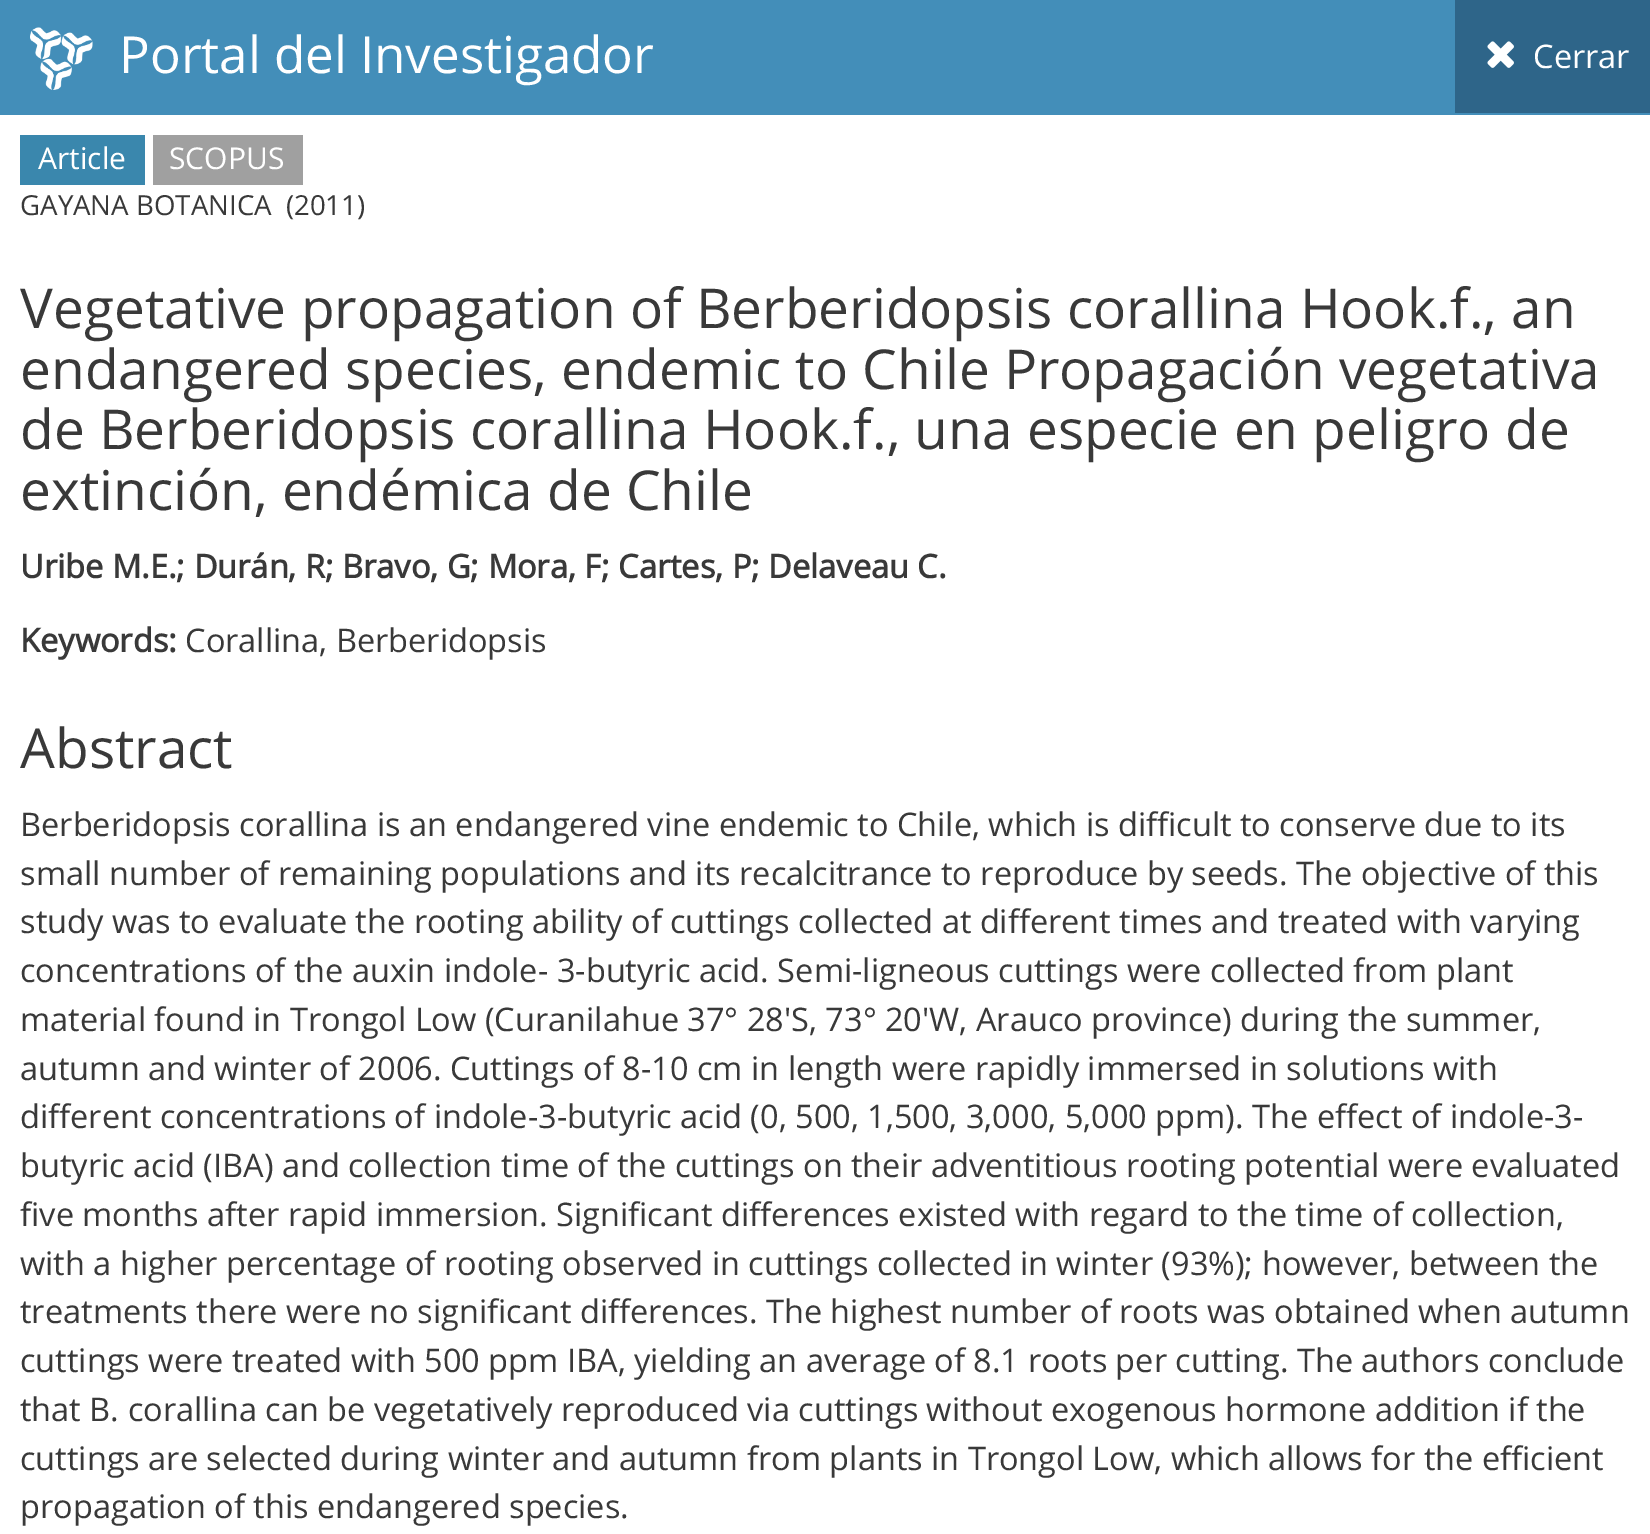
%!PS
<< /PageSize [1650 1534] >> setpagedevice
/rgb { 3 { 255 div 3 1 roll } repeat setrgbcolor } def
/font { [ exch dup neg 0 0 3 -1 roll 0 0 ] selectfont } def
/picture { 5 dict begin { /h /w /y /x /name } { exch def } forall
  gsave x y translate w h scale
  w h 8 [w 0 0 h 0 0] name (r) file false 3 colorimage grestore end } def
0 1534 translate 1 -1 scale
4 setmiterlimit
255 255 255 rgb
0 0 1650 1534 rectfill
67 142 185 rgb
0 0 1650 115 rectfill
(img/1.rgb) 30 27 63 63 picture
46 101 137 rgb
1455 0 195 113 rectfill
(img/2.rgb) 1487 41 27 27 picture
58 135 173 rgb
20 135 125 50 rectfill
160 160 160 rgb
153 135 150 50 rectfill
/OpenSans-Regular 51 font
255 255 255 rgb
119 73 moveto (Portal del Investigador) show
/OpenSans-Regular 32.5 font
1533 68 moveto (Cerrar) show
/OpenSans-Regular 30 font
38 169 moveto (Article) show
169 169 moveto (SCOPUS) show
/OpenSans-Regular 27.6 font
57 57 57 rgb
20 215 moveto (GAYANA BOTANICA  \(2011\)) show
/OpenSans-Regular 55 font
[
  [(Vegetative propagation of Berberidopsis corallina Hook.f., an) 20 328]
  [(endangered species, endemic to Chile Propagación vegetativa) 20 389]
  [(de Berberidopsis corallina Hook.f., una especie en peligro de) 20 449]
  [(extinción, endémica de Chile) 20 510]
] { aload pop moveto show } forall
/OpenSans-Bold 32.5 font
20 578 moveto (Uribe M.E.; Durán, R; Bravo, G; Mora, F; Cartes, P; Delaveau C.) show
20 652 moveto (Keywords:) show
/OpenSans-Regular 32.5 font
185 652 moveto (Corallina, Berberidopsis) show
/OpenSans-Regular 55 font
20 768 moveto (Abstract) show
/OpenSans-Regular 32.5 font
[
  [(Berberidopsis corallina is an endangered vine endemic to Chile, which is difficult to conserve due to its) 20 836]
  [(small number of remaining populations and its recalcitrance to reproduce by seeds. The objective of this) 20 885]
  [(study was to evaluate the rooting ability of cuttings collected at different times and treated with varying) 20 933]
  [(concentrations of the auxin indole- 3-butyric acid. Semi-ligneous cuttings were collected from plant) 20 982]
  [(material found in Trongol Low \(Curanilahue 37° 28'S, 73° 20'W, Arauco province\) during the summer,) 20 1031]
  [(autumn and winter of 2006. Cuttings of 8-10 cm in length were rapidly immersed in solutions with) 20 1080]
  [(different concentrations of indole-3-butyric acid \(0, 500, 1,500, 3,000, 5,000 ppm\). The effect of indole-3-) 20 1128]
  [(butyric acid \(IBA\) and collection time of the cuttings on their adventitious rooting potential were evaluated) 20 1177]
  [(five months after rapid immersion. Significant differences existed with regard to the time of collection,) 20 1226]
  [(with a higher percentage of rooting observed in cuttings collected in winter \(93%\); however, between the) 20 1275]
  [(treatments there were no significant differences. The highest number of roots was obtained when autumn) 20 1323]
  [(cuttings were treated with 500 ppm IBA, yielding an average of 8.1 roots per cutting. The authors conclude) 20 1372]
  [(that B. corallina can be vegetatively reproduced via cuttings without exogenous hormone addition if the) 20 1421]
  [(cuttings are selected during winter and autumn from plants in Trongol Low, which allows for the efficient) 20 1470]
  [(propagation of this endangered species.) 20 1518]
] { aload pop moveto show } forall
showpage
